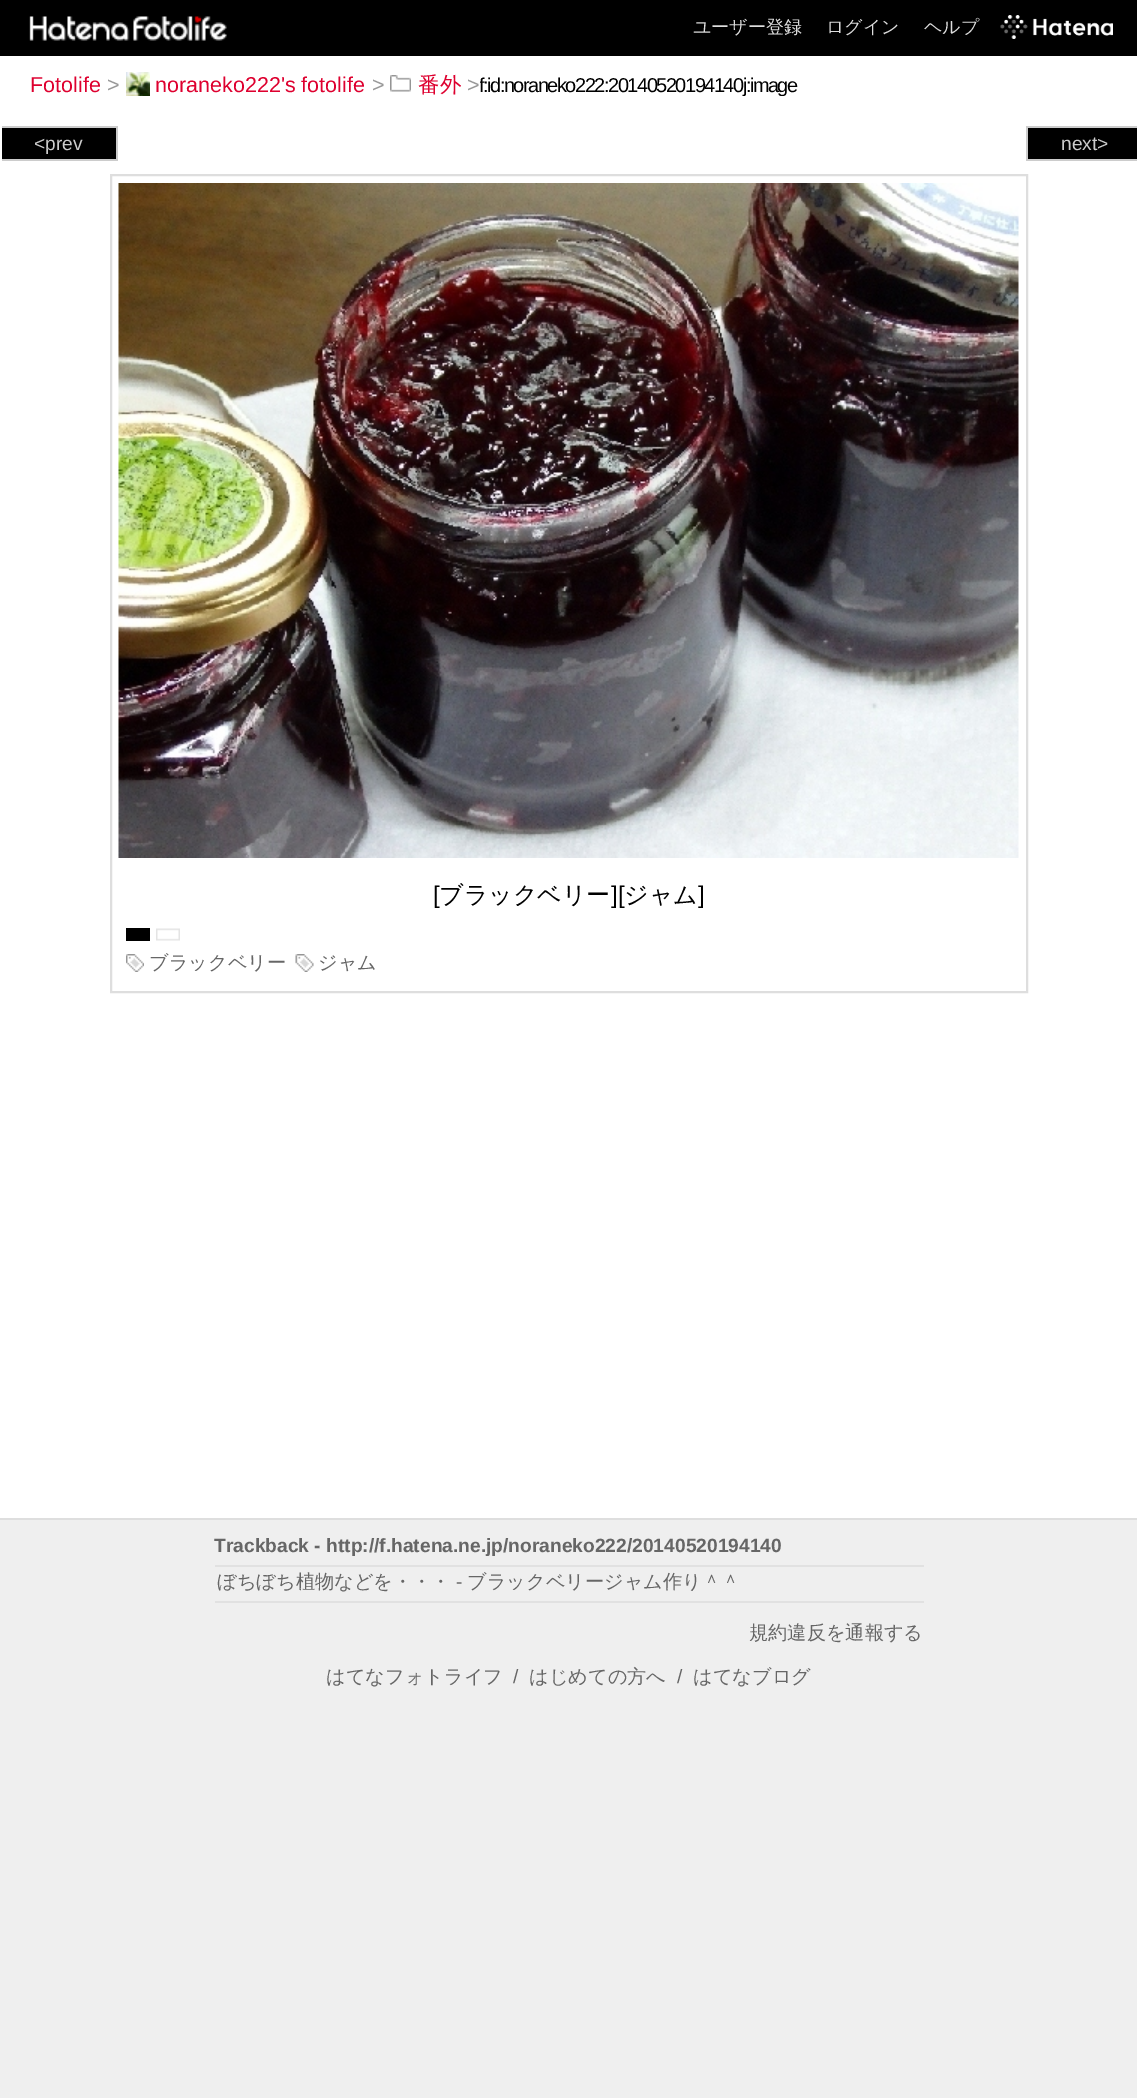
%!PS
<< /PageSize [1137 2098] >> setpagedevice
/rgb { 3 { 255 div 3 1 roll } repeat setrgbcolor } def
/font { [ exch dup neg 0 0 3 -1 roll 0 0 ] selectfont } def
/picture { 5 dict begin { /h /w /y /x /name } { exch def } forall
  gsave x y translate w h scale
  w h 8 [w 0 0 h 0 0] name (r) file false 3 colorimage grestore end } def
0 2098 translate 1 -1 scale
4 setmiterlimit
239 239 239 rgb
0 0 1137 2098 rectfill
0 0 0 rgb
0 0 1137 56 rectfill
(img/1.rgb) 29 16 101 25 picture
(img/2.rgb) 133 16 94 25 picture
(img/3.rgb) 1000 15 113 24 picture
255 255 255 rgb
0 56 1137 1462 rectfill
(img/4.rgb) 126 72 24 24 picture
(img/5.rgb) 390 75 21 17 picture
[
  [0 1518 1137 2 222 222 222]
  [2 128 114 31 0 0 0]
  [2 126 115 2 204 204 204]
  [116 126 2 35 204 204 204]
  [2 159 115 2 204 204 204]
  [1028 128 109 31 0 0 0]
  [1026 126 111 2 204 204 204]
  [1026 159 111 2 204 204 204]
  [1026 126 2 35 204 204 204]
] { aload pop rgb rectfill } forall
222 222 222 rgb
2 setlinewidth
111 175 916 817 rectstroke
(img/6.rgb) 118 183 901 675 picture
0 0 0 rgb
126 928 24 13 rectfill
(img/7.rgb) 156 928 24 13 picture
(img/8.rgb) 126 954 18 18 picture
(img/9.rgb) 295 954 19 18 picture
225 225 225 rgb
215 1565 709 2 rectfill
215 1601 709 2 rectfill
/WenQuanYiZenHei-Medium 18 font
221 221 221 rgb
[
  [(ユーザー登録) 693 33]
  [(ログイン) 826 33]
  [(ヘルプ) 924 33]
] { aload pop moveto show } forall
/LiberationSans-Regular 21.5 font
222 0 47 rgb
30 92 moveto (Fotolife) show
153 153 153 rgb
107 92 moveto (>) show
222 0 47 rgb
155 92 moveto (noraneko222's fotolife) show
153 153 153 rgb
372 92 moveto (>) show
/WenQuanYiZenHei-Medium 21.5 font
222 0 47 rgb
418 92 moveto (番外) show
/LiberationSans-Regular 21.5 font
153 153 153 rgb
467 92 moveto (>) show
gsave
480 74 566 22 rectclip
/LiberationSans-Regular 20 font
0 0 0 rgb
479 92 moveto -1.5 0 (f:id:noraneko222:20140520194140j:image) ashow
grestore
/LiberationSans-Regular 19.2 font
204 204 204 rgb
34 150 moveto (<prev) show
1061 150 moveto (next>) show
/LiberationSans-Regular 24 font
0 0 0 rgb
433 903 moveto ([) show
/WenQuanYiZenHei-Medium 24 font
439 903 moveto (ブラックベリー) show
/LiberationSans-Regular 24 font
611 903 moveto (][) show
/WenQuanYiZenHei-Medium 24 font
624 903 moveto (ジャム) show
/LiberationSans-Regular 24 font
698 903 moveto (]) show
/WenQuanYiZenHei-Medium 19.2 font
102 102 102 rgb
149 969 moveto (ブラックベリー) show
318 969 moveto (ジャム) show
/LiberationSans-Bold 19.2 font
214 1552 moveto (Trackback - http://f.hatena.ne.jp/noraneko222/20140520194140) show
/WenQuanYiZenHei-Medium 19.2 font
217 1588 moveto (ぼちぼち植物などを・・・) show
/LiberationSans-Regular 19.2 font
456 1588 moveto (-) show
/WenQuanYiZenHei-Medium 19.2 font
[
  [(ブラックベリージャム作り＾＾) 467 1588]
  [(規約違反を通報する) 749 1639]
  [(はてなフォトライフ) 326 1683]
] { aload pop moveto show } forall
/LiberationSans-Regular 19.2 font
513 1683 moveto (/) show
/WenQuanYiZenHei-Medium 19.2 font
529 1683 moveto (はじめての方へ) show
/LiberationSans-Regular 19.2 font
677 1683 moveto (/) show
/WenQuanYiZenHei-Medium 19.2 font
693 1683 moveto (はてなブログ) show
showpage
